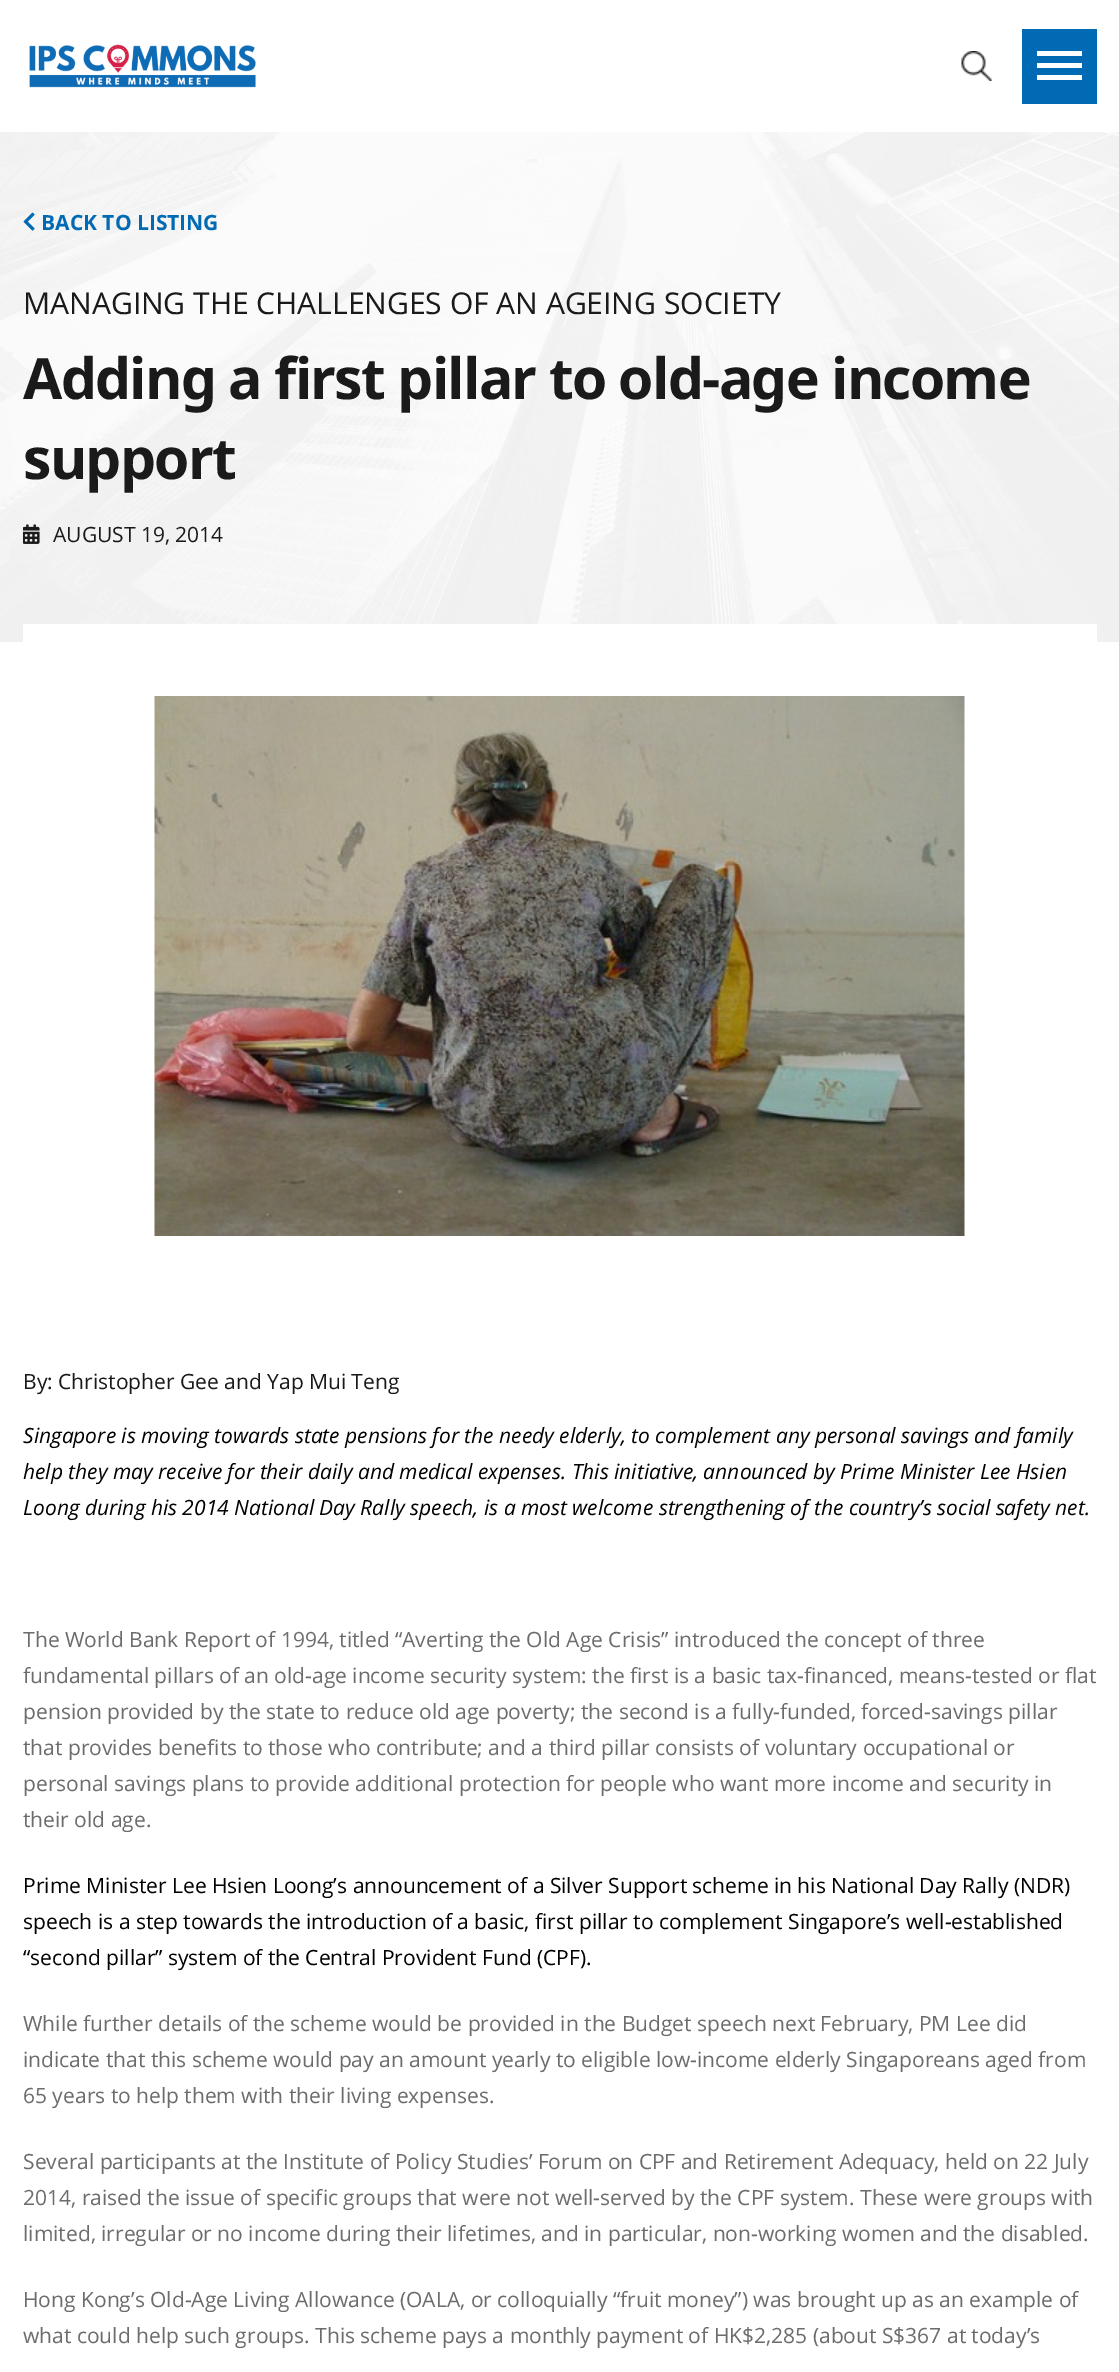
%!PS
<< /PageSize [1119 2372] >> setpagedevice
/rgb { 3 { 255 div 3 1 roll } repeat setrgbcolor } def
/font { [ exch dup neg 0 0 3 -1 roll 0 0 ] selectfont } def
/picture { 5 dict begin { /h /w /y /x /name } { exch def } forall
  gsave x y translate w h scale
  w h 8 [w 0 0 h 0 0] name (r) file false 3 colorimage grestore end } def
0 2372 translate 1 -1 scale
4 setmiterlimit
255 255 255 rgb
0 0 1119 2372 rectfill
(img/1.rgb) 29 44 227 44 picture
(img/2.rgb) 961 51 31 30 picture
[
  [1022 29 75 75 0 107 180]
  [1037 51 45 5 255 255 255]
  [1037 63 45 5 255 255 255]
  [1037 75 45 5 255 255 255]
] { aload pop rgb rectfill } forall
(img/3.rgb) 0 132 1119 510 picture
(img/4.rgb) 23 212 12 19 picture
(img/5.rgb) 23 524 17 20 picture
23 624 1074 18 rectfill
(img/6.rgb) 154 696 811 540 picture
/OpenSans-Bold 21 font
0 107 180 rgb
41 230 moveto (BACK TO LISTING) show
/OpenSans-Regular 30 font
26 26 26 rgb
23 314 moveto (MANAGING THE CHALLENGES OF AN AGEING SOCIETY) show
/NotoSans-Bold 57 font
23 399 moveto -1.7 0 (Adding a first pillar to old-age income) ashow
23 479 moveto -1.7 0 (support) ashow
/OpenSans-Regular 21 font
53 542 moveto (AUGUST 19, 2014) show
23 1389 moveto (By: Christopher Gee and Yap Mui Teng) show
/OpenSans-Italic 21 font
0 0 0 rgb
[
  [(Singapore is moving towards state pensions for the needy elderly, to complement any personal savings and family) 23 1443]
  [(help they may receive for their daily and medical expenses. This initiative, announced by Prime Minister Lee Hsien) 23 1479]
  [(Loong during his 2014 National Day Rally speech, is a most welcome strengthening of the country’s social safety net.) 23 1515]
] { aload pop moveto show } forall
/OpenSans-Regular 21 font
108 108 108 rgb
[
  [(The World Bank Report of 1994, titled “Averting the Old Age Crisis” introduced the concept of three) 23 1647]
  [(fundamental pillars of an old-age income security system: the first is a basic tax-financed, means-tested or flat) 23 1683]
  [(pension provided by the state to reduce old age poverty; the second is a fully-funded, forced-savings pillar) 23 1719]
  [(that provides benefits to those who contribute; and a third pillar consists of voluntary occupational or) 23 1755]
  [(personal savings plans to provide additional protection for people who want more income and security in) 23 1791]
  [(their old age.) 23 1827]
] { aload pop moveto show } forall
0 0 0 rgb
[
  [(Prime Minister Lee Hsien Loong’s announcement of a Silver Support scheme in his National Day Rally \(NDR\)) 23 1893]
  [(speech is a step towards the introduction of a basic, first pillar to complement Singapore’s well-established) 23 1929]
  [(“second pillar” system of the Central Provident Fund \(CPF\).) 23 1965]
] { aload pop moveto show } forall
108 108 108 rgb
[
  [(While further details of the scheme would be provided in the Budget speech next February, PM Lee did) 23 2031]
  [(indicate that this scheme would pay an amount yearly to eligible low-income elderly Singaporeans aged from) 23 2067]
  [(65 years to help them with their living expenses.) 23 2103]
  [(Several participants at the Institute of Policy Studies’ Forum on CPF and Retirement Adequacy, held on 22 July) 23 2169]
  [(2014, raised the issue of specific groups that were not well-served by the CPF system. These were groups with) 23 2205]
  [(limited, irregular or no income during their lifetimes, and in particular, non-working women and the disabled.) 23 2241]
  [(Hong Kong’s Old-Age Living Allowance \(OALA, or colloquially “fruit money”\) was brought up as an example of) 23 2307]
  [(what could help such groups. This scheme pays a monthly payment of HK$2,285 \(about S$367 at today’s) 23 2343]
] { aload pop moveto show } forall
showpage
